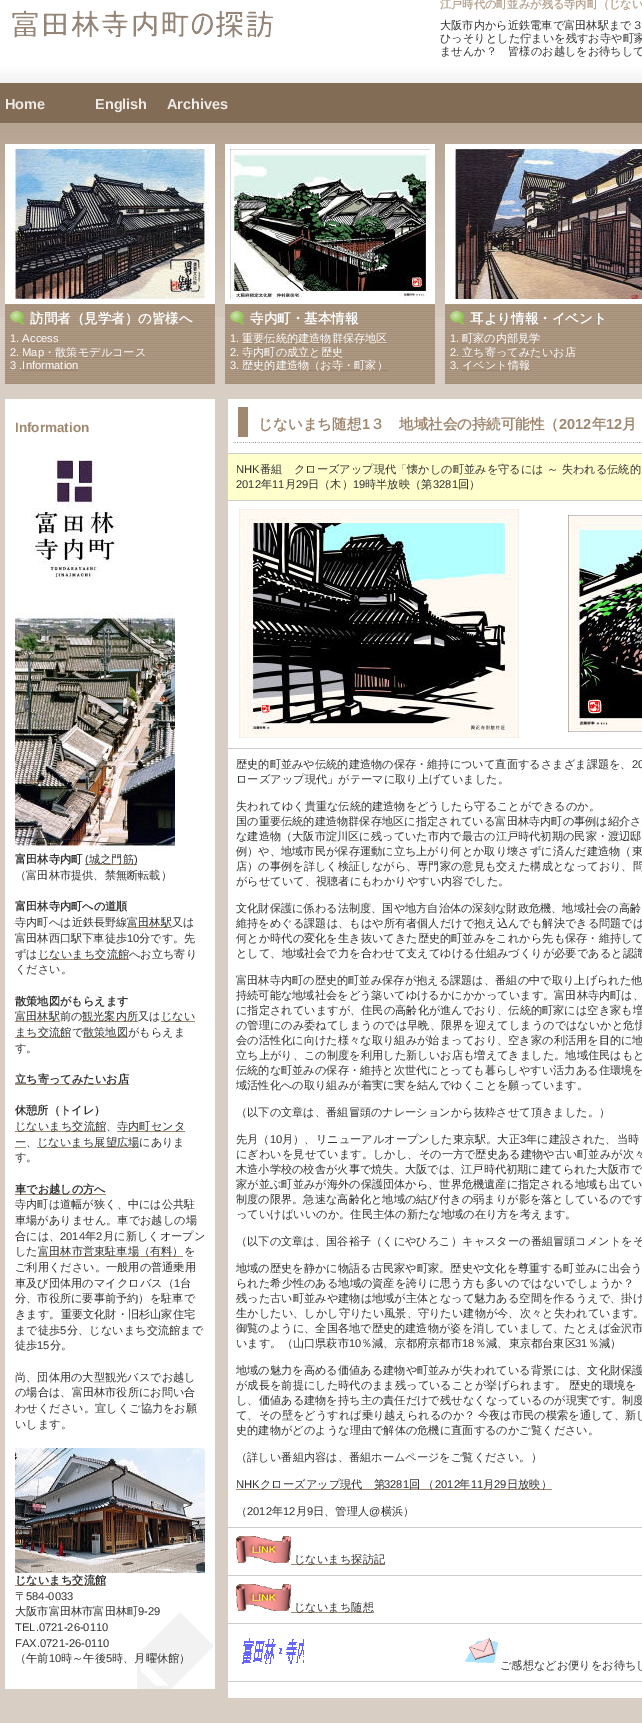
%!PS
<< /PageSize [642 1723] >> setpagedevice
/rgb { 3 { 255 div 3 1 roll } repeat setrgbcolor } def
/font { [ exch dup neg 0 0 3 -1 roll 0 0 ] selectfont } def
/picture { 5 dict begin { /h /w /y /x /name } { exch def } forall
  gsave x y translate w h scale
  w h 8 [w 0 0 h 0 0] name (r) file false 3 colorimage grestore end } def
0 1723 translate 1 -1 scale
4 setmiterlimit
217 206 195 rgb
0 0 642 1723 rectfill
(img/1.rgb) 0 0 642 317 picture
(img/2.rgb) 12 10 261 28 picture
(img/3.rgb) 5 304 210 80 picture
255 255 255 rgb
5 144 210 160 rectfill
(img/4.rgb) 10 149 200 150 picture
(img/5.rgb) 10 311 15 14 picture
[
  [22 343 37 1 160 136 112]
  [22 357 124 1 160 136 112]
  [22 370 56 1 160 136 112]
] { aload pop rgb rectfill } forall
(img/3.rgb) 225 304 210 80 picture
255 255 255 rgb
225 144 210 160 rectfill
(img/6.rgb) 230 149 200 150 picture
(img/5.rgb) 230 311 15 14 picture
[
  [242 343 146 1 160 136 112]
  [242 357 102 1 160 136 112]
  [242 370 146 1 160 136 112]
] { aload pop rgb rectfill } forall
(img/7.rgb) 445 304 197 80 picture
255 255 255 rgb
445 144 197 160 rectfill
(img/8.rgb) 450 149 192 150 picture
(img/5.rgb) 450 311 15 14 picture
[
  [462 343 79 1 160 136 112]
  [462 357 114 1 160 136 112]
  [462 370 69 1 160 136 112]
  [5 399 210 1290 255 255 255]
] { aload pop rgb rectfill } forall
(img/9.rgb) 137 1612 77 77 picture
(img/10.rgb) 31 460 88 120 picture
(img/11.rgb) 15 612 160 240 picture
[
  [85 864 52 1 160 136 112]
  [38 959 91 1 160 136 112]
  [15 1021 45 1 160 136 112]
  [82 1021 56 1 160 136 112]
  [161 1021 34 1 160 136 112]
  [15 1037 56 1 160 136 112]
  [83 1037 45 1 160 136 112]
  [15 1084 114 1 160 136 112]
  [15 1131 91 1 160 136 112]
  [117 1131 68 1 160 136 112]
  [15 1147 11 1 160 136 112]
  [37 1147 102 1 160 136 112]
  [15 1194 91 1 160 136 112]
  [38 1256 145 1 160 136 112]
] { aload pop rgb rectfill } forall
(img/12.rgb) 15 1448 190 125 picture
15 1585 91 1 rectfill
255 255 255 rgb
228 399 414 1299 rectfill
(img/13.rgb) 233 442 409 1 picture
[
  [238 407 10 30 160 136 112]
  [228 453 414 1 204 204 204]
  [228 454 414 46 255 255 204]
  [228 500 414 1 204 204 204]
] { aload pop rgb rectfill } forall
(img/14.rgb) 239 509 280 229 picture
228 748 414 1 rectfill
(img/15.rgb) 568 515 74 217 picture
[
  [228 1527 414 1 204 204 204]
  [236 1489 316 1 160 136 112]
  [228 1575 414 1 204 204 204]
] { aload pop rgb rectfill } forall
(img/16.rgb) 236 1536 55 27 picture
160 136 112 rgb
291 1564 94 1 rectfill
204 204 204 rgb
228 1623 414 1 rectfill
(img/16.rgb) 236 1584 55 27 picture
160 136 112 rgb
291 1612 83 1 rectfill
204 204 204 rgb
228 1681 414 1 rectfill
(img/17.rgb) 242 1638 62 26 picture
(img/18.rgb) 465 1638 34 26 picture
/WenQuanYiZenHei-Bold 11.2 font
182 163 144 rgb
440 8 moveto (江戸時代の町並みが残る寺内町（じない) show
/WenQuanYiZenHei-Medium 11.2 font
51 51 51 rgb
[
  [(大阪市内から近鉄電車で富田林駅まで３) 440 29]
  [(ひっそりとした佇まいを残すお寺や町家) 440 42]
  [(ませんか？　皆様のお越しをお待ちして) 440 55]
] { aload pop moveto show } forall
/WenQuanYiZenHei-Bold 13.5 font
255 255 255 rgb
30 323 moveto (訪問者（見学者）の皆様へ) show
/LiberationSans-Regular 11.2 font
[
  [(1. Access) 10 342]
  [(2.) 10 356]
  [(Map) 22 356]
] { aload pop moveto show } forall
/WenQuanYiZenHei-Medium 11.2 font
44 356 moveto (・散策モデルコース) show
/LiberationSans-Regular 11.2 font
10 369 moveto (3 .Information) show
/WenQuanYiZenHei-Bold 13.5 font
250 323 moveto (寺内町・基本情報) show
/LiberationSans-Regular 11.2 font
230 342 moveto (1.) show
/WenQuanYiZenHei-Medium 11.2 font
242 342 moveto (重要伝統的建造物群保存地区) show
/LiberationSans-Regular 11.2 font
230 356 moveto (2.) show
/WenQuanYiZenHei-Medium 11.2 font
242 356 moveto (寺内町の成立と歴史) show
/LiberationSans-Regular 11.2 font
230 369 moveto (3.) show
/WenQuanYiZenHei-Medium 11.2 font
242 369 moveto (歴史的建造物（お寺・町家）) show
/WenQuanYiZenHei-Bold 13.5 font
470 323 moveto (耳より情報・イベント) show
/LiberationSans-Regular 11.2 font
450 342 moveto (1.) show
/WenQuanYiZenHei-Medium 11.2 font
462 342 moveto (町家の内部見学) show
/LiberationSans-Regular 11.2 font
450 356 moveto (2.) show
/WenQuanYiZenHei-Medium 11.2 font
462 356 moveto (立ち寄ってみたいお店) show
/LiberationSans-Regular 11.2 font
450 369 moveto (3.) show
/WenQuanYiZenHei-Medium 11.2 font
462 369 moveto (イベント情報) show
/LiberationSans-Bold 13.5 font
160 136 112 rgb
15 432 moveto (Information) show
/WenQuanYiZenHei-Bold 11.2 font
51 51 51 rgb
15 863 moveto (富田林寺内町) show
/LiberationSans-Regular 11.2 font
85 863 moveto (\() show
/WenQuanYiZenHei-Medium 11.2 font
89 863 moveto (城之門筋) show
/LiberationSans-Regular 11.2 font
134 863 moveto (\)) show
/WenQuanYiZenHei-Medium 11.2 font
15 879 moveto (（富田林市提供、禁無断転載）) show
/WenQuanYiZenHei-Bold 11.2 font
15 910 moveto (富田林寺内町への道順) show
/WenQuanYiZenHei-Medium 11.2 font
15 926 moveto (寺内町へは近鉄長野線) show
160 136 112 rgb
127 927 45 1 rectfill
51 51 51 rgb
127 926 moveto (富田林駅又は) show
15 942 moveto (富田林西口駅下車徒歩) show
/LiberationSans-Regular 11.2 font
127 942 moveto (10) show
/WenQuanYiZenHei-Medium 11.2 font
[
  [(分です。先) 139 942]
  [(ずは) 15 958]
  [(じないまち交流館へお立ち寄り) 38 958]
  [(ください。) 15 973]
] { aload pop moveto show } forall
/WenQuanYiZenHei-Bold 11.2 font
15 1005 moveto (散策地図がもらえます) show
/WenQuanYiZenHei-Medium 11.2 font
[
  [(富田林駅前の) 15 1020]
  [(観光案内所又は) 82 1020]
  [(じない) 161 1020]
  [(まち交流館で) 15 1036]
  [(散策地図がもらえま) 83 1036]
  [(す。) 15 1052]
] { aload pop moveto show } forall
/WenQuanYiZenHei-Bold 11.2 font
15 1083 moveto (立ち寄ってみたいお店) show
15 1114 moveto (休憩所（トイレ）) show
/WenQuanYiZenHei-Medium 11.2 font
[
  [(じないまち交流館、) 15 1130]
  [(寺内町センタ) 117 1130]
  [(ー、) 15 1146]
  [(じないまち展望広場にありま) 37 1146]
  [(す。) 15 1161]
] { aload pop moveto show } forall
/WenQuanYiZenHei-Bold 11.2 font
15 1193 moveto (車でお越しの方へ) show
/WenQuanYiZenHei-Medium 11.2 font
[
  [(寺内町は道幅が狭く、中には公共駐) 15 1208]
  [(車場がありません。車でお越しの場) 15 1224]
  [(合には、) 15 1240]
] { aload pop moveto show } forall
/LiberationSans-Regular 11.2 font
60 1240 moveto (2014) show
/WenQuanYiZenHei-Medium 11.2 font
85 1240 moveto (年) show
/LiberationSans-Regular 11.2 font
96 1240 moveto (2) show
/WenQuanYiZenHei-Medium 11.2 font
[
  [(月に新しくオープン) 103 1240]
  [(した) 15 1255]
  [(富田林市営東駐車場（有料）を) 38 1255]
  [(ご利用ください。一般用の普通乗用) 15 1271]
  [(車及び団体用のマイクロバス（) 15 1287]
] { aload pop moveto show } forall
/LiberationSans-Regular 11.2 font
174 1287 moveto (1) show
/WenQuanYiZenHei-Medium 11.2 font
[
  [(台) 180 1287]
  [(分、市役所に要事前予約）を駐車で) 15 1302]
  [(きます。重要文化財・旧杉山家住宅) 15 1318]
  [(まで徒歩) 15 1334]
] { aload pop moveto show } forall
/LiberationSans-Regular 11.2 font
60 1334 moveto (5) show
/WenQuanYiZenHei-Medium 11.2 font
67 1334 moveto (分、じないまち交流館まで) show
15 1349 moveto (徒歩) show
/LiberationSans-Regular 11.2 font
37 1349 moveto (15) show
/WenQuanYiZenHei-Medium 11.2 font
[
  [(分。) 50 1349]
  [(尚、団体用の大型観光バスでお越し) 15 1381]
  [(の場合は、富田林市役所にお問い合) 15 1396]
  [(わせください。宜しくご協力をお願) 15 1412]
  [(いします。) 15 1428]
] { aload pop moveto show } forall
/WenQuanYiZenHei-Bold 11.2 font
15 1584 moveto (じないまち交流館) show
/WenQuanYiZenHei-Medium 11.2 font
15 1600 moveto (〒) show
/LiberationSans-Regular 11.2 font
26 1600 moveto (584-0033) show
/WenQuanYiZenHei-Medium 11.2 font
15 1615 moveto (大阪市富田林市富田林町) show
/LiberationSans-Regular 11.2 font
[
  [(9-29) 138 1615]
  [(TEL.0721-26-0110) 15 1631]
  [(FAX.0721-26-0110) 15 1647]
] { aload pop moveto show } forall
/WenQuanYiZenHei-Medium 11.2 font
15 1662 moveto (（午前) show
/LiberationSans-Regular 11.2 font
49 1662 moveto (10) show
/WenQuanYiZenHei-Medium 11.2 font
61 1662 moveto (時～午後) show
/LiberationSans-Regular 11.2 font
106 1662 moveto (5) show
/WenQuanYiZenHei-Medium 11.2 font
112 1662 moveto (時、月曜休館）) show
/WenQuanYiZenHei-Bold 14.5 font
160 136 112 rgb
258 429 moveto (じないまち随想) show
/LiberationSans-Bold 14.5 font
362 429 moveto (1) show
/WenQuanYiZenHei-Bold 14.5 font
370 429 moveto (３　地域社会の持続可能性（) show
/LiberationSans-Bold 14.5 font
559 429 moveto (2012) show
/WenQuanYiZenHei-Bold 14.5 font
592 429 moveto (年) show
/LiberationSans-Bold 14.5 font
606 429 moveto (12) show
/WenQuanYiZenHei-Bold 14.5 font
622 429 moveto (月) show
/LiberationSans-Regular 11.2 font
51 51 51 rgb
236 473 moveto (NHK) show
/WenQuanYiZenHei-Medium 11.2 font
260 473 moveto (番組　クローズアップ現代「懐かしの町並みを守るには ～ 失われる伝統的) show
/LiberationSans-Regular 11.2 font
236 488 moveto (2012) show
/WenQuanYiZenHei-Medium 11.2 font
261 488 moveto (年) show
/LiberationSans-Regular 11.2 font
272 488 moveto (11) show
/WenQuanYiZenHei-Medium 11.2 font
285 488 moveto (月) show
/LiberationSans-Regular 11.2 font
296 488 moveto (29) show
/WenQuanYiZenHei-Medium 11.2 font
308 488 moveto (日（木）) show
/LiberationSans-Regular 11.2 font
353 488 moveto (19) show
/WenQuanYiZenHei-Medium 11.2 font
365 488 moveto (時半放映（第) show
/LiberationSans-Regular 11.2 font
433 488 moveto (3281) show
/WenQuanYiZenHei-Medium 11.2 font
458 488 moveto (回）) show
236 768 moveto (歴史的町並みや伝統的建造物の保存・維持について直面するさまざま課題を、) show
/LiberationSans-Regular 11.2 font
632 768 moveto (20) show
/WenQuanYiZenHei-Medium 11.2 font
[
  [(ローズアップ現代」がテーマに取り上げていました。) 236 783]
  [(失われてゆく貴重な伝統的建造物をどうしたら守ることができるのか。) 236 810]
  [(国の重要伝統的建造物群保存地区に指定されている富田林寺内町の事例は紹介さ) 236 825]
  [(な建造物（大阪市淀川区に残っていた市内で最古の江戸時代初期の民家・渡辺邸) 236 840]
  [(例）や、地域市民が保存運動に立ち上がり何とか取り壊さずに済んだ建造物（東) 236 855]
  [(店）の事例を詳しく検証しながら、専門家の意見も交えた構成となっており、問) 236 870]
  [(がらせていて、視聴者にもわかりやすい内容でした。) 236 885]
  [(文化財保護に係わる法制度、国や地方自治体の深刻な財政危機、地域社会の高齢) 236 912]
  [(維持をめぐる課題は、もはや所有者個人だけで抱え込んでも解決できる問題では) 236 927]
  [(何とか時代の変化を生き抜いてきた歴史的町並みをこれから先も保存・維持して) 236 942]
  [(として、地域社会で力を合わせて支えてゆける仕組みづくりが必要であると認識) 236 957]
  [(富田林寺内町の歴史的町並み保存が抱える課題は、番組の中で取り上げられた他) 236 984]
  [(持続可能な地域社会をどう築いてゆけるかにかかっています。富田林寺内町は、) 236 999]
  [(に指定されていますが、住民の高齢化が進んでおり、伝統的町家には空き家も増) 236 1014]
  [(の管理にのみ委ねてしまうのでは早晩、限界を迎えてしまうのではないかと危惧) 236 1029]
  [(会の活性化に向けた様々な取り組みが始まっており、空き家の利活用を目的に地) 236 1044]
  [(立ち上がり、この制度を利用した新しいお店も増えてきました。地域住民はもと) 236 1059]
  [(伝統的な町並みの保存・維持と次世代にとっても暮らしやすい活力ある住環境を) 236 1074]
  [(域活性化への取り組みが着実に実を結んでゆくことを願っています。) 236 1089]
  [(（以下の文章は、番組冒頭のナレーションから抜粋させて頂きました。）) 236 1116]
  [(先月（) 236 1143]
] { aload pop moveto show } forall
/LiberationSans-Regular 11.2 font
270 1143 moveto (10) show
/WenQuanYiZenHei-Medium 11.2 font
282 1143 moveto (月）、リニューアルオープンした東京駅。大正) show
/LiberationSans-Regular 11.2 font
520 1143 moveto (3) show
/WenQuanYiZenHei-Medium 11.2 font
[
  [(年に建設された、当時) 526 1143]
  [(にぎわいを見せています。しかし、その一方で歴史ある建物や古い町並みが次々) 236 1158]
  [(木造小学校の校舎が火事で焼失。大阪では、江戸時代初期に建てられた大阪市で) 236 1173]
  [(家が並ぶ町並みが海外の保護団体から、世界危機遺産に指定される地域も出てい) 236 1188]
  [(制度の限界。急速な高齢化と地域の結び付きの弱まりが影を落としているのです) 236 1203]
  [(っていけばいいのか。住民主体の新たな地域の在り方を考えます。) 236 1218]
  [(（以下の文章は、国谷裕子（くにやひろこ）キャスターの番組冒頭コメントをそ) 236 1245]
  [(地域の歴史を静かに物語る古民家や町家。歴史や文化を尊重する町並みに出会う) 236 1272]
  [(られた希少性のある地域の資産を誇りに思う方も多いのではないでしょうか？) 236 1287]
  [(残った古い町並みや建物は地域が主体となって魅力ある空間を作るうえで、掛け) 236 1302]
  [(生かしたい、しかし守りたい風景、守りたい建物が今、次々と失われています。) 236 1317]
  [(御覧のように、全国各地で歴史的建造物が姿を消していまして、たとえば金沢市) 236 1332]
  [(います。（山口県萩市) 236 1347]
] { aload pop moveto show } forall
/LiberationSans-Regular 11.2 font
349 1347 moveto (10) show
/WenQuanYiZenHei-Medium 11.2 font
361 1347 moveto (％減、京都府京都市) show
/LiberationSans-Regular 11.2 font
462 1347 moveto (18) show
/WenQuanYiZenHei-Medium 11.2 font
475 1347 moveto (％減、東京都台東区) show
/LiberationSans-Regular 11.2 font
575 1347 moveto (31) show
/WenQuanYiZenHei-Medium 11.2 font
[
  [(％減）) 588 1347]
  [(地域の魅力を高める価値ある建物や町並みが失われている背景には、文化財保護) 236 1374]
  [(が成長を前提にした時代のまま残っていることが挙げられます。) 236 1389]
  [(歴史的環境を) 569 1389]
  [(し、価値ある建物を持ち主の責任だけで残せなくなっているのが現実です。制度) 236 1404]
  [(て、その壁をどうすれば乗り越えられるのか？) 236 1419]
  [(今夜は市民の模索を通して、新し) 478 1419]
  [(史的建物がどのような理由で解体の危機に直面するのかご覧ください。) 236 1434]
  [(（詳しい番組内容は、番組ホームページをご覧ください。）) 236 1461]
] { aload pop moveto show } forall
/LiberationSans-Regular 11.2 font
236 1488 moveto (NHK) show
/WenQuanYiZenHei-Medium 11.2 font
260 1488 moveto (クローズアップ現代　第) show
/LiberationSans-Regular 11.2 font
384 1488 moveto (3281) show
/WenQuanYiZenHei-Medium 11.2 font
409 1488 moveto -1 0 32 (回 （) widthshow
/LiberationSans-Regular 11.2 font
435 1488 moveto (2012) show
/WenQuanYiZenHei-Medium 11.2 font
459 1488 moveto (年) show
/LiberationSans-Regular 11.2 font
471 1488 moveto (11) show
/WenQuanYiZenHei-Medium 11.2 font
483 1488 moveto (月) show
/LiberationSans-Regular 11.2 font
494 1488 moveto (29) show
/WenQuanYiZenHei-Medium 11.2 font
507 1488 moveto (日放映）) show
236 1515 moveto (（) show
/LiberationSans-Regular 11.2 font
247 1515 moveto (2012) show
/WenQuanYiZenHei-Medium 11.2 font
272 1515 moveto (年) show
/LiberationSans-Regular 11.2 font
283 1515 moveto (12) show
/WenQuanYiZenHei-Medium 11.2 font
296 1515 moveto (月) show
/LiberationSans-Regular 11.2 font
307 1515 moveto (9) show
/WenQuanYiZenHei-Medium 11.2 font
313 1515 moveto (日、管理人) show
/LiberationSans-Regular 11.2 font
369 1515 moveto (@) show
/WenQuanYiZenHei-Medium 11.2 font
[
  [(横浜）) 381 1515]
  [(じないまち探訪記) 294 1563]
  [(じないまち随想) 294 1611]
  [(ご感想などお便りをお待ちし) 500 1669]
] { aload pop moveto show } forall
/LiberationSans-Bold 14.5 font
238 234 230 rgb
[
  [(Home) 5 109]
  [(English) 95 109]
  [(Archives) 167 109]
] { aload pop moveto show } forall
showpage
